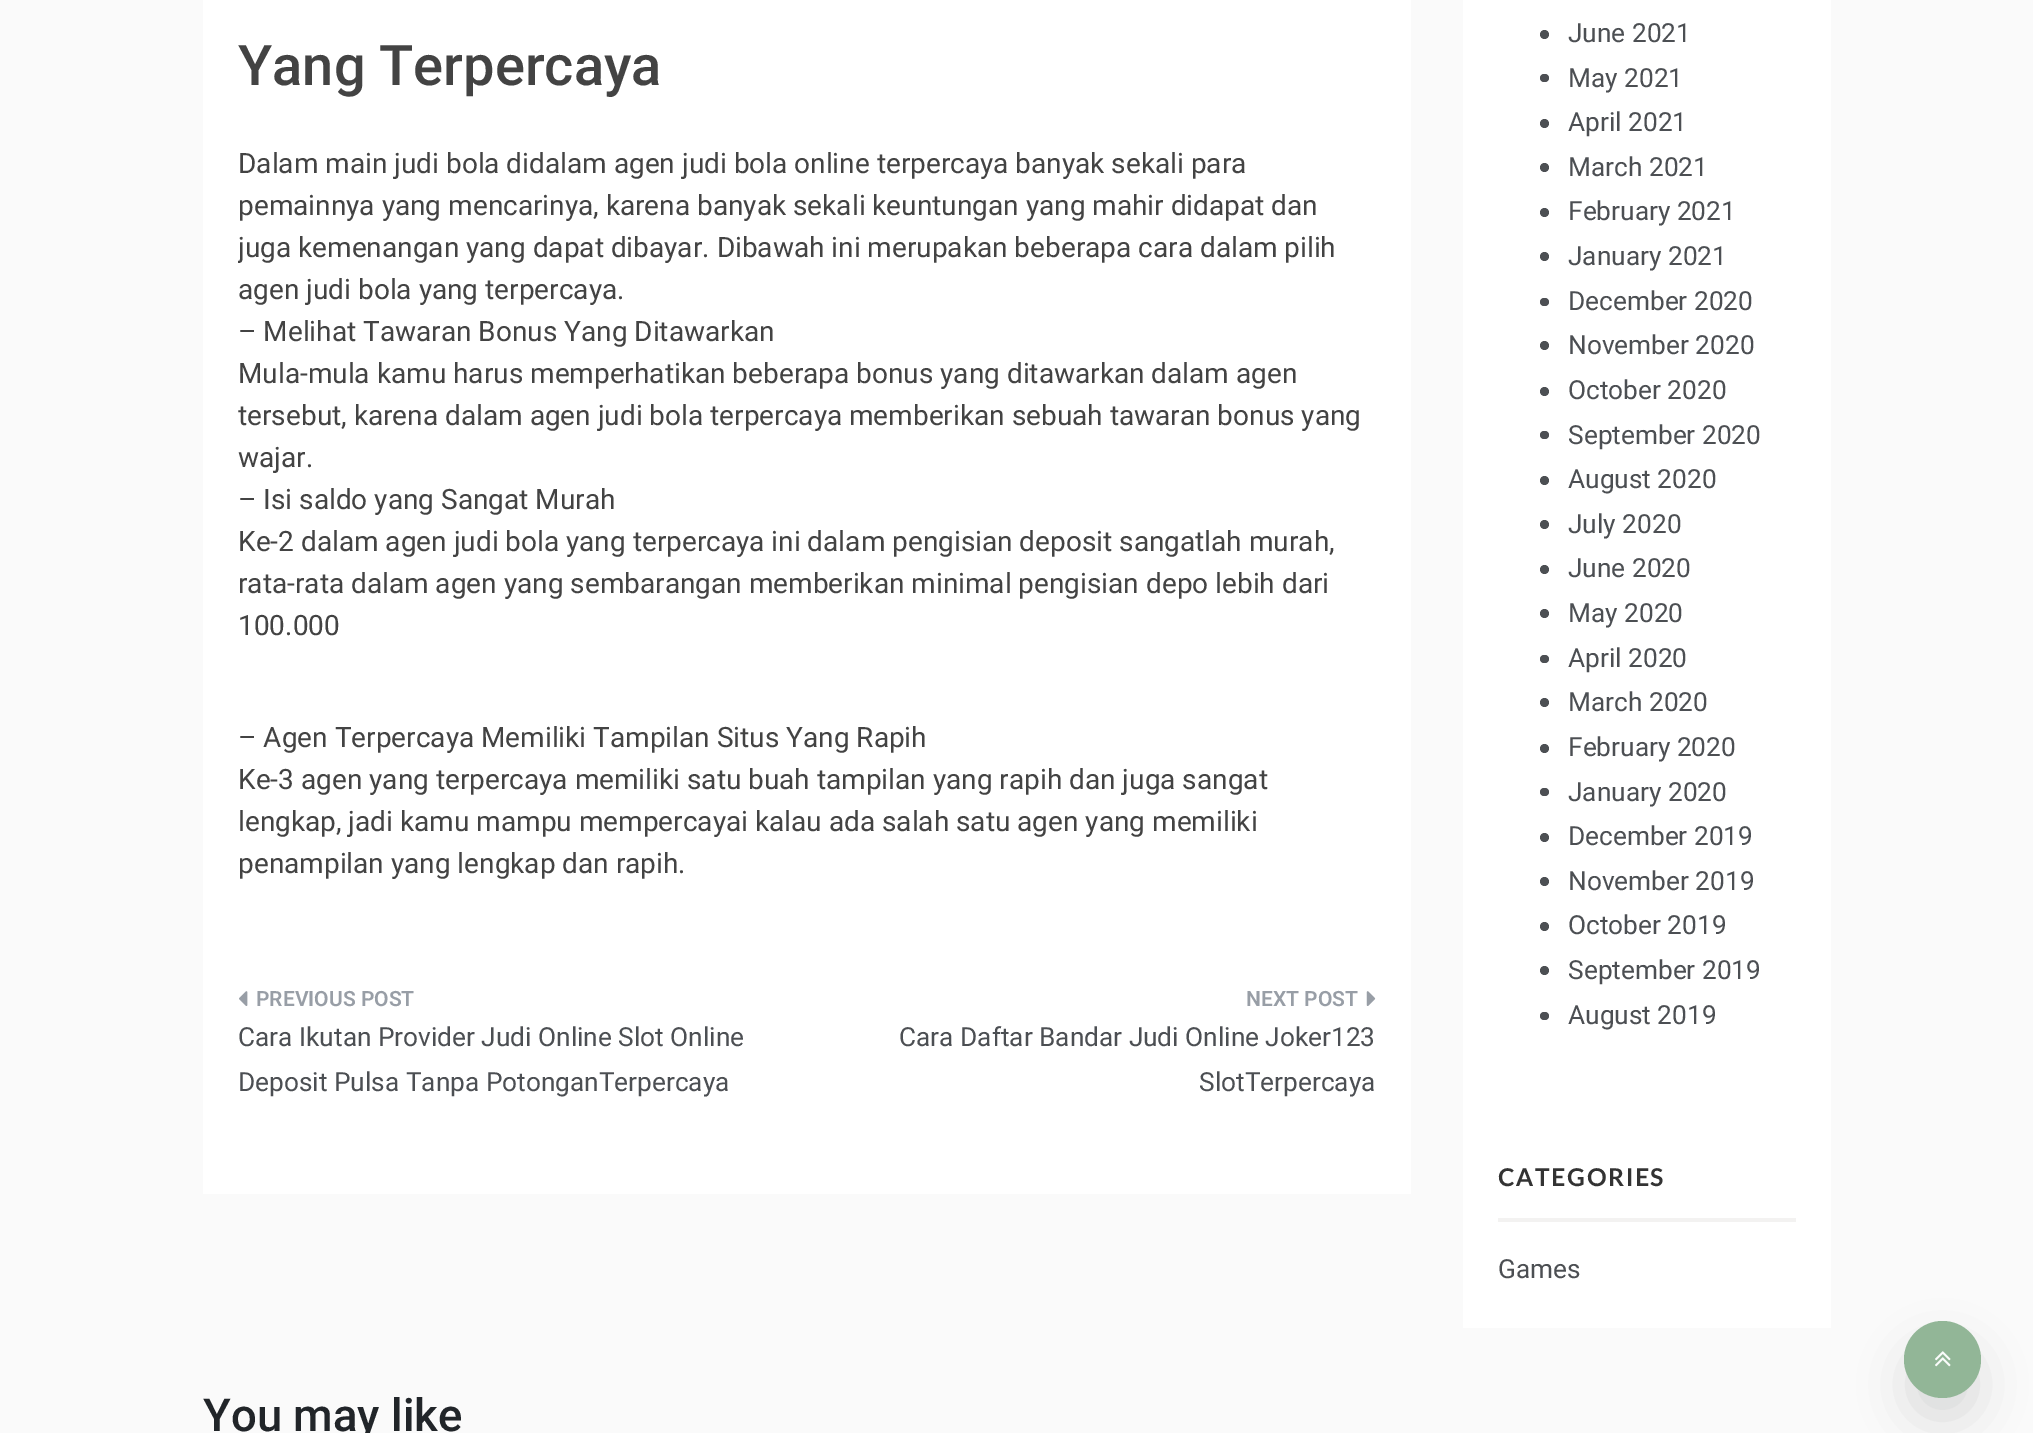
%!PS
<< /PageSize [2033 1433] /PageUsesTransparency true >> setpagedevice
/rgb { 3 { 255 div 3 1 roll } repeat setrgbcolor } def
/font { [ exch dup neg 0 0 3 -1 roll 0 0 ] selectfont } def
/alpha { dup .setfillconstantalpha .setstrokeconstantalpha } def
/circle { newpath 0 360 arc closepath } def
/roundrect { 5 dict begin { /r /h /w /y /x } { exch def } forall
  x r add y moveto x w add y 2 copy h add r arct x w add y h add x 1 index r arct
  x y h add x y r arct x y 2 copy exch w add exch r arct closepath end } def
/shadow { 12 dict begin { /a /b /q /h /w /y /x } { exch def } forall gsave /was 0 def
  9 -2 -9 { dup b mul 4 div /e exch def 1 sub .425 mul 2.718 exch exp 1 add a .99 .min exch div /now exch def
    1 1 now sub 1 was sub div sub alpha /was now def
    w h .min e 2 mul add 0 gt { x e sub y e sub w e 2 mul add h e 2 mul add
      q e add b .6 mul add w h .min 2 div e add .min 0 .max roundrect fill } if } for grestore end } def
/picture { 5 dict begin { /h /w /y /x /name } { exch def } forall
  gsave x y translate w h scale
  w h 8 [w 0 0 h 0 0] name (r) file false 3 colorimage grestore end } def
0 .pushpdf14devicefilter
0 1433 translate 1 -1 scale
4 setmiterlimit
250 250 250 rgb
0 0 2033 1433 rectfill
255 255 255 rgb
203 0 1208 1194 rectfill
(img/1.rgb) 239 991 9 15 picture
(img/2.rgb) 1366 991 10 15 picture
1463 0 368 1328 rectfill
76 79 83 rgb
1544.5 34.5 4.5 circle fill
1540 74 9 8 4 roundrect fill
1544.5 123.5 4.5 circle fill
1544.5 167.5 4.5 circle fill
1544.5 212.5 4.5 circle fill
1544.5 256.5 4.5 circle fill
1540 298 9 8 4 roundrect fill
1544.5 345.5 4.5 circle fill
1544.5 391.5 4.5 circle fill
1540 431 9 8 4 roundrect fill
1544.5 480.5 4.5 circle fill
1544.5 524.5 4.5 circle fill
1544.5 569.5 4.5 circle fill
1544.5 613.5 4.5 circle fill
1540 655 9 8 4 roundrect fill
1544.5 702.5 4.5 circle fill
1544.5 748.5 4.5 circle fill
1540 788 9 8 4 roundrect fill
1544.5 837.5 4.5 circle fill
1544.5 881.5 4.5 circle fill
1544.5 926.5 4.5 circle fill
1544.5 970.5 4.5 circle fill
1540 1012 9 8 4 roundrect fill
243 242 241 rgb
1498 1218 298 4 rectfill
24 27 30 rgb
1911 1353 63 63 31.5 24.5 0.15 shadow
146 182 151 rgb
1942.5 1359.5 38.5 circle fill
(img/3.rgb) 1935 1351 16 16 picture
/Roboto-Medium 56 font
67 67 67 rgb
238 85 moveto (Yang Terpercaya) show
/Roboto-Regular 28 font
238 173 moveto (Dalam main judi bola didalam agen judi bola online terpercaya banyak sekali para) show
238 215 moveto (pemainnya yang mencarinya, karena banyak sekali keuntungan yang mahir didapat dan) show
gsave
238 0 1138 1159 rectclip
238 257 moveto (juga kemenangan yang dapat dibayar. Dibawah ini merupakan beberapa cara dalam pilih) show
grestore
[
  [(agen judi bola yang terpercaya.) 238 299]
  [(– Melihat Tawaran Bonus Yang Ditawarkan) 238 341]
  [(Mula-mula kamu harus memperhatikan beberapa bonus yang ditawarkan dalam agen) 238 383]
  [(tersebut, karena dalam agen judi bola terpercaya memberikan sebuah tawaran bonus yang) 238 425]
  [(wajar.) 238 467]
  [(– Isi saldo yang Sangat Murah) 238 509]
  [(Ke-2 dalam agen judi bola yang terpercaya ini dalam pengisian deposit sangatlah murah,) 238 551]
  [(rata-rata dalam agen yang sembarangan memberikan minimal pengisian depo lebih dari) 238 593]
  [(100.000) 238 635]
  [(– Agen Terpercaya Memiliki Tampilan Situs Yang Rapih) 238 747]
  [(Ke-3 agen yang terpercaya memiliki satu buah tampilan yang rapih dan juga sangat) 238 789]
  [(lengkap, jadi kamu mampu mempercayai kalau ada salah satu agen yang memiliki) 238 831]
  [(penampilan yang lengkap dan rapih.) 238 873]
] { aload pop moveto show } forall
/Roboto-SemiBold 21 font
152 158 166 rgb
256 1006 moveto (PREVIOUS POST) show
/Roboto-Regular 26.25 font
76 79 83 rgb
238 1046 moveto (Cara Ikutan Provider Judi Online Slot Online) show
238 1091 moveto (Deposit Pulsa Tanpa PotonganTerpercaya) show
/Roboto-SemiBold 21 font
152 158 166 rgb
1246 1006 moveto (NEXT POST) show
/Roboto-Regular 26.25 font
76 79 83 rgb
[
  [(Cara Daftar Bandar Judi Online Joker123) 899 1046]
  [(SlotTerpercaya) 1199 1091]
  [(June 2021) 1568 42]
  [(May 2021) 1568 87]
  [(April 2021) 1568 131]
  [(March 2021) 1568 176]
  [(February 2021) 1568 220]
  [(January 2021) 1568 265]
  [(December 2020) 1568 310]
  [(November 2020) 1568 354]
  [(October 2020) 1568 399]
  [(September 2020) 1568 444]
  [(August 2020) 1568 488]
  [(July 2020) 1568 533]
  [(June 2020) 1568 577]
  [(May 2020) 1568 622]
  [(April 2020) 1568 667]
  [(March 2020) 1568 711]
  [(February 2020) 1568 756]
  [(January 2020) 1568 801]
  [(December 2019) 1568 845]
  [(November 2019) 1568 890]
  [(October 2019) 1568 934]
  [(September 2019) 1568 979]
  [(August 2019) 1568 1024]
] { aload pop moveto show } forall
/Lato-Bold 24.5 font
51 51 51 rgb
1498 1186 moveto 1.75 0 (CATEGORIES) ashow
/Roboto-Regular 26.25 font
76 79 83 rgb
1498 1278 moveto (Games) show
/Roboto-Medium 45.5 font
33 37 41 rgb
203 1431 moveto (You may like) show
.poppdf14devicefilter showpage
